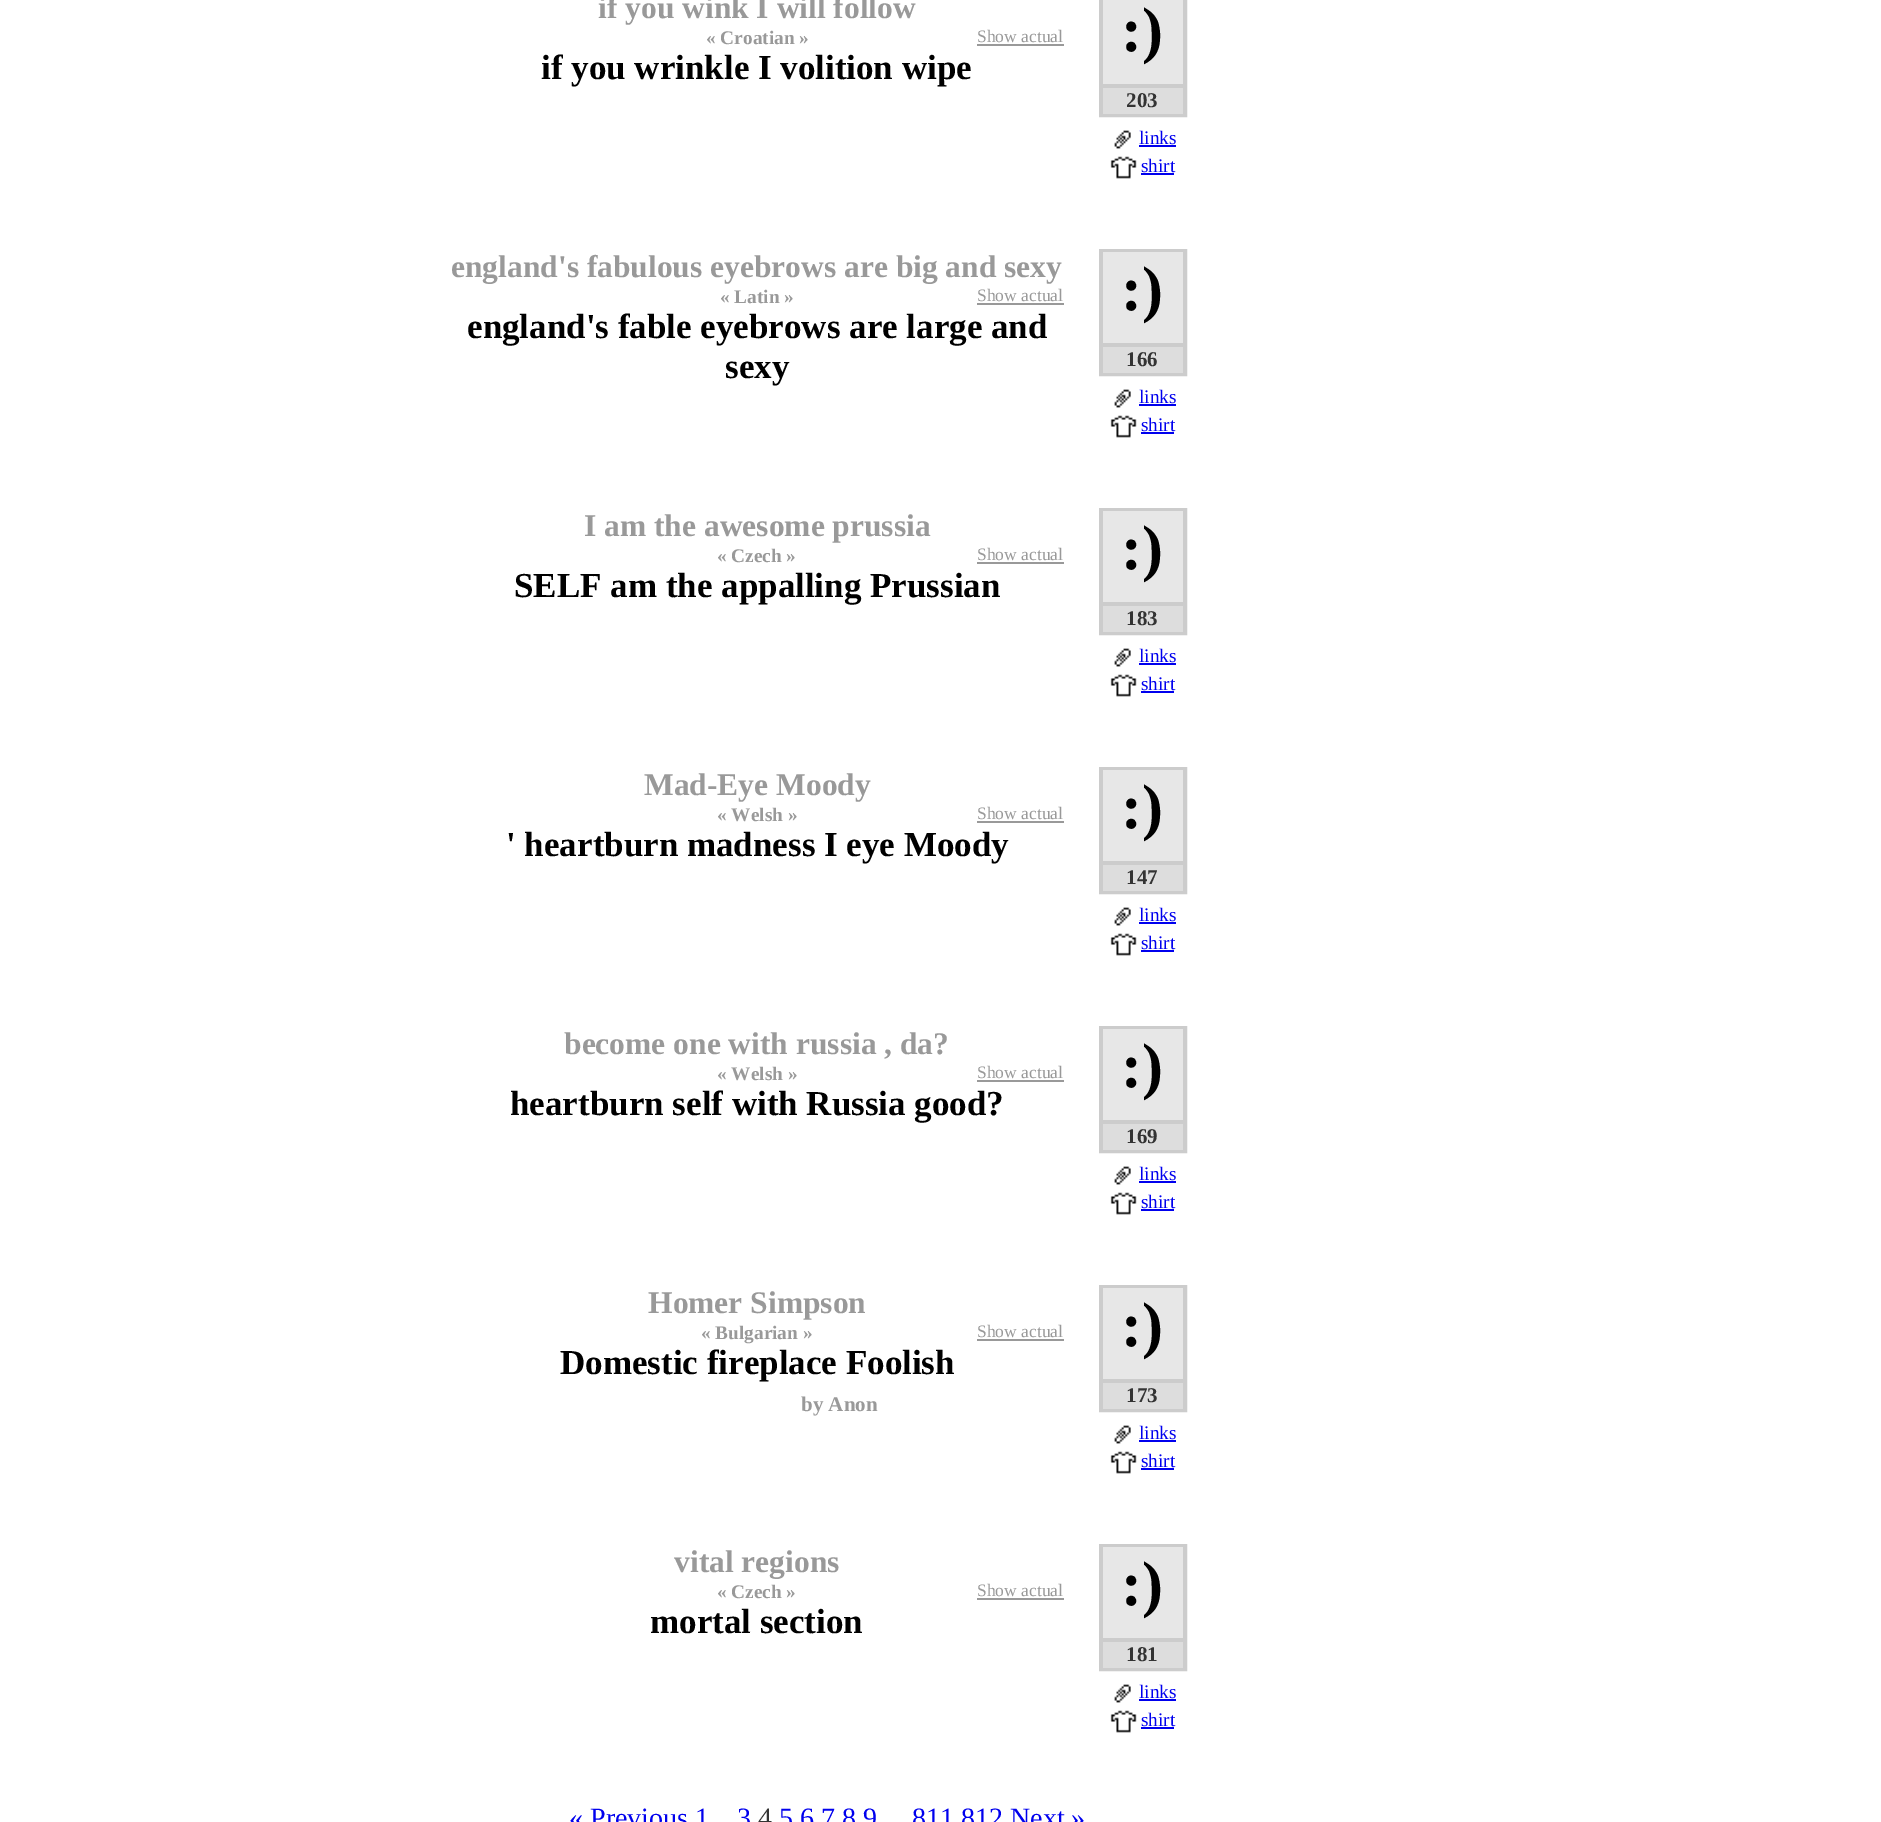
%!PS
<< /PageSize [1881 1822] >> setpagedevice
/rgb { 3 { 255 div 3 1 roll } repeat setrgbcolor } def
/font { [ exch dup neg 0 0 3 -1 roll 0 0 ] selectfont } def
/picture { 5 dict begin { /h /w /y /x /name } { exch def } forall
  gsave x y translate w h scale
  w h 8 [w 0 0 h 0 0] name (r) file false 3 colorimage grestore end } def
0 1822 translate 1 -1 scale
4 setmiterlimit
255 255 255 rgb
0 0 1881 1822 rectfill
204 204 204 rgb
4 setlinewidth
1101 -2 84 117 rectstroke
[
  [1103 0 80 84 231 231 231]
  [1103 84 80 4 204 204 204]
  [1103 88 80 26 221 221 221]
] { aload pop rgb rectfill } forall
(img/1.rgb) 1114 130 17 19 picture
0 0 238 rgb
1139 145 37 2 rectfill
(img/2.rgb) 1110 156 27 23 picture
1141 173 33 2 rectfill
153 153 153 rgb
977 44 87 2 rectfill
204 204 204 rgb
1101 251 84 123 rectstroke
[
  [1103 252 80 91 231 231 231]
  [1103 343 80 4 204 204 204]
  [1103 347 80 26 221 221 221]
] { aload pop rgb rectfill } forall
(img/1.rgb) 1114 389 17 19 picture
0 0 238 rgb
1139 404 37 2 rectfill
(img/2.rgb) 1110 415 27 23 picture
1141 432 33 2 rectfill
153 153 153 rgb
977 303 87 2 rectfill
204 204 204 rgb
1101 510 84 123 rectstroke
[
  [1103 511 80 91 231 231 231]
  [1103 602 80 4 204 204 204]
  [1103 606 80 26 221 221 221]
] { aload pop rgb rectfill } forall
(img/1.rgb) 1114 648 17 19 picture
0 0 238 rgb
1139 663 37 2 rectfill
(img/2.rgb) 1110 674 27 23 picture
1141 691 33 2 rectfill
153 153 153 rgb
977 562 87 2 rectfill
204 204 204 rgb
1101 769 84 123 rectstroke
[
  [1103 770 80 91 231 231 231]
  [1103 861 80 4 204 204 204]
  [1103 865 80 26 221 221 221]
] { aload pop rgb rectfill } forall
(img/1.rgb) 1114 907 17 19 picture
0 0 238 rgb
1139 922 37 2 rectfill
(img/2.rgb) 1110 933 27 23 picture
1141 950 33 2 rectfill
153 153 153 rgb
977 821 87 2 rectfill
204 204 204 rgb
1101 1028 84 123 rectstroke
[
  [1103 1029 80 91 231 231 231]
  [1103 1120 80 4 204 204 204]
  [1103 1124 80 26 221 221 221]
] { aload pop rgb rectfill } forall
(img/1.rgb) 1114 1166 17 19 picture
0 0 238 rgb
1139 1181 37 2 rectfill
(img/2.rgb) 1110 1192 27 23 picture
1141 1209 33 2 rectfill
153 153 153 rgb
977 1080 87 2 rectfill
204 204 204 rgb
1101 1287 84 123 rectstroke
[
  [1103 1288 80 91 231 231 231]
  [1103 1379 80 4 204 204 204]
  [1103 1383 80 26 221 221 221]
] { aload pop rgb rectfill } forall
(img/1.rgb) 1114 1425 17 19 picture
0 0 238 rgb
1139 1440 37 2 rectfill
(img/2.rgb) 1110 1451 27 23 picture
1141 1468 33 2 rectfill
153 153 153 rgb
977 1339 87 2 rectfill
204 204 204 rgb
1101 1546 84 123 rectstroke
[
  [1103 1547 80 91 231 231 231]
  [1103 1638 80 4 204 204 204]
  [1103 1642 80 26 221 221 221]
] { aload pop rgb rectfill } forall
(img/1.rgb) 1114 1684 17 19 picture
0 0 238 rgb
1139 1699 37 2 rectfill
(img/2.rgb) 1110 1710 27 23 picture
1141 1727 33 2 rectfill
153 153 153 rgb
977 1598 87 2 rectfill
/LiberationSerif-Bold 31.5 font
598 18 moveto (if you wink I will follow) show
/LiberationSerif-Bold 63 font
0 0 0 rgb
1121 51 moveto (:\)) show
/LiberationSerif-Bold 21 font
51 51 51 rgb
1126 107 moveto (203) show
/LiberationSerif-Regular 19.25 font
0 0 238 rgb
1139 144 moveto (links) show
1141 172 moveto (shirt) show
/LiberationSerif-Bold 19.25 font
153 153 153 rgb
706 44 moveto (« Croatian ») show
/LiberationSerif-Regular 17.5 font
977 42 moveto (Show actual) show
/LiberationSerif-Bold 35 font
0 0 0 rgb
541 79 moveto (if you wrinkle I volition wipe) show
/LiberationSerif-Bold 31.5 font
153 153 153 rgb
451 277 moveto (england's fabulous eyebrows are big and sexy) show
/LiberationSerif-Bold 63 font
0 0 0 rgb
1121 310 moveto (:\)) show
/LiberationSerif-Bold 21 font
51 51 51 rgb
1126 366 moveto (166) show
/LiberationSerif-Regular 19.25 font
0 0 238 rgb
1139 403 moveto (links) show
1141 431 moveto (shirt) show
/LiberationSerif-Bold 19.25 font
153 153 153 rgb
720 303 moveto (« Latin ») show
/LiberationSerif-Regular 17.5 font
977 301 moveto (Show actual) show
/LiberationSerif-Bold 35 font
0 0 0 rgb
467 338 moveto (england's fable eyebrows are large and) show
725 378 moveto (sexy) show
/LiberationSerif-Bold 31.5 font
153 153 153 rgb
584 536 moveto (I am the awesome prussia) show
/LiberationSerif-Bold 63 font
0 0 0 rgb
1121 569 moveto (:\)) show
/LiberationSerif-Bold 21 font
51 51 51 rgb
1126 625 moveto (183) show
/LiberationSerif-Regular 19.25 font
0 0 238 rgb
1139 662 moveto (links) show
1141 690 moveto (shirt) show
/LiberationSerif-Bold 19.25 font
153 153 153 rgb
717 562 moveto (« Czech ») show
/LiberationSerif-Regular 17.5 font
977 560 moveto (Show actual) show
/LiberationSerif-Bold 35 font
0 0 0 rgb
514 597 moveto (SELF am the appalling Prussian) show
/LiberationSerif-Bold 31.5 font
153 153 153 rgb
644 795 moveto (Mad-Eye Moody) show
/LiberationSerif-Bold 63 font
0 0 0 rgb
1121 828 moveto (:\)) show
/LiberationSerif-Bold 21 font
51 51 51 rgb
1126 884 moveto (147) show
/LiberationSerif-Regular 19.25 font
0 0 238 rgb
1139 921 moveto (links) show
1141 949 moveto (shirt) show
/LiberationSerif-Bold 19.25 font
153 153 153 rgb
717 821 moveto (« Welsh ») show
/LiberationSerif-Regular 17.5 font
977 819 moveto (Show actual) show
/LiberationSerif-Bold 35 font
0 0 0 rgb
506 856 moveto (' heartburn madness I eye Moody) show
/LiberationSerif-Bold 31.5 font
153 153 153 rgb
564 1054 moveto (become one with russia , da?) show
/LiberationSerif-Bold 63 font
0 0 0 rgb
1121 1087 moveto (:\)) show
/LiberationSerif-Bold 21 font
51 51 51 rgb
1126 1143 moveto (169) show
/LiberationSerif-Regular 19.25 font
0 0 238 rgb
1139 1180 moveto (links) show
1141 1208 moveto (shirt) show
/LiberationSerif-Bold 19.25 font
153 153 153 rgb
717 1080 moveto (« Welsh ») show
/LiberationSerif-Regular 17.5 font
977 1078 moveto (Show actual) show
/LiberationSerif-Bold 35 font
0 0 0 rgb
510 1115 moveto (heartburn self with Russia good?) show
/LiberationSerif-Bold 31.5 font
153 153 153 rgb
648 1313 moveto (Homer Simpson) show
/LiberationSerif-Bold 63 font
0 0 0 rgb
1121 1346 moveto (:\)) show
/LiberationSerif-Bold 21 font
51 51 51 rgb
1126 1402 moveto (173) show
/LiberationSerif-Regular 19.25 font
0 0 238 rgb
1139 1439 moveto (links) show
1141 1467 moveto (shirt) show
/LiberationSerif-Bold 19.25 font
153 153 153 rgb
701 1339 moveto (« Bulgarian ») show
/LiberationSerif-Regular 17.5 font
977 1337 moveto (Show actual) show
/LiberationSerif-Bold 35 font
0 0 0 rgb
560 1374 moveto (Domestic fireplace Foolish) show
/LiberationSerif-Bold 21 font
153 153 153 rgb
801 1411 moveto (by Anon) show
/LiberationSerif-Bold 31.5 font
674 1572 moveto (vital regions) show
/LiberationSerif-Bold 63 font
0 0 0 rgb
1121 1605 moveto (:\)) show
/LiberationSerif-Bold 21 font
51 51 51 rgb
1126 1661 moveto (181) show
/LiberationSerif-Regular 19.25 font
0 0 238 rgb
1139 1698 moveto (links) show
1141 1726 moveto (shirt) show
/LiberationSerif-Bold 19.25 font
153 153 153 rgb
717 1598 moveto (« Czech ») show
/LiberationSerif-Regular 17.5 font
977 1596 moveto (Show actual) show
/LiberationSerif-Bold 35 font
0 0 0 rgb
650 1633 moveto (mortal section) show
/LiberationSerif-Regular 28 font
0 0 238 rgb
569 1827 moveto (« Previous 1) show
737 1827 moveto (3) show
51 51 51 rgb
758 1827 moveto (4) show
0 0 238 rgb
779 1827 moveto (5 6 7 8 9) show
912 1827 moveto (811 812 Next ») show
showpage
